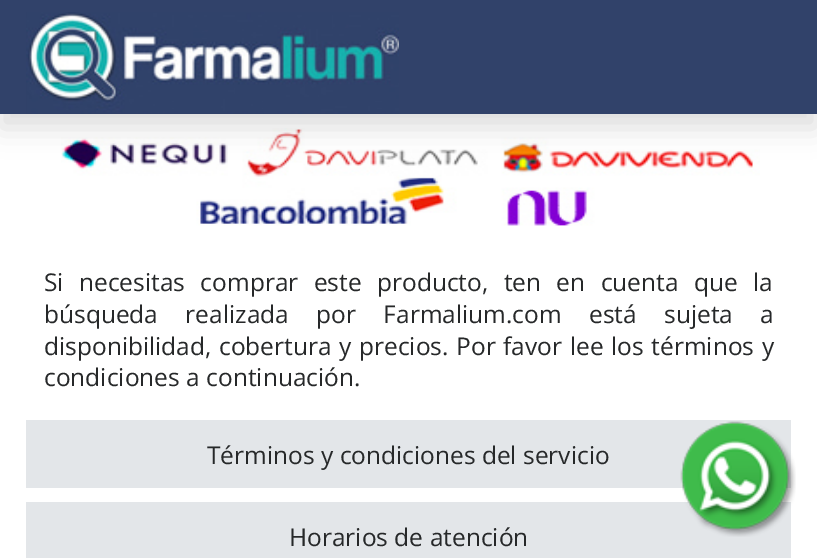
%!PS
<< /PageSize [817 558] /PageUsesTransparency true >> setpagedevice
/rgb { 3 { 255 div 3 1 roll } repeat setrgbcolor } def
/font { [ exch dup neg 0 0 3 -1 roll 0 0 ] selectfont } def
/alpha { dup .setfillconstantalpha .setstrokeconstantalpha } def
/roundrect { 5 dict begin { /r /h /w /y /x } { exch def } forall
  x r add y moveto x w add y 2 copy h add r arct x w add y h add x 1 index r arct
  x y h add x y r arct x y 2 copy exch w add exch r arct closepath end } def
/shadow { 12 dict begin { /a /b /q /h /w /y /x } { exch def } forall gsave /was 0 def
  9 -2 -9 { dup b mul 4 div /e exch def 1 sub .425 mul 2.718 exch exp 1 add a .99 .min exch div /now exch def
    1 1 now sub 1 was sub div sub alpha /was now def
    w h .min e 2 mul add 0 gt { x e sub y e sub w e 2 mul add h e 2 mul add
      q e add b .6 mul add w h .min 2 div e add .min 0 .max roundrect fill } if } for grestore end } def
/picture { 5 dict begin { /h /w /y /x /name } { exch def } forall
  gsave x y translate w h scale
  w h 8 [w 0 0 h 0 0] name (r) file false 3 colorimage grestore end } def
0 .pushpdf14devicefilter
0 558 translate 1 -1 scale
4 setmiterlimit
255 255 255 rgb
0 0 817 558 rectfill
49 66 106 rgb
0 0 817 114 rectfill
(img/2.rgb) 61 128 699 98 picture
gsave
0 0 moveto 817 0 lineto 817 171 lineto 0 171 lineto closepath 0 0 moveto 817 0 lineto 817 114 lineto 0 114 lineto closepath eoclip newpath
0 0 0 rgb
0 14 817 114 0 14 0.13 shadow
grestore
(img/1.rgb) 26 12 373 102 picture
227 230 233 rgb
26 420 765 68 rectfill
26 502 765 56 rectfill
(img/3.rgb) 680 421 116 116 picture
/OpenSans-Regular 24.5 font
38 40 41 rgb
44 291 moveto 9 0 32 (Si necesitas comprar este producto, ten en cuenta que la) widthshow
44 323 moveto 21 0 32 (búsqueda realizada por Farmalium.com está sujeta a) widthshow
44 355 moveto 1.25 0 32 (disponibilidad, cobertura y precios. Por favor lee los términos y) widthshow
[
  [(condiciones a continuación.) 44 386]
  [(Términos y condiciones del servicio) 207 464]
  [(Horarios de atención) 289 546]
] { aload pop moveto show } forall
.poppdf14devicefilter showpage
